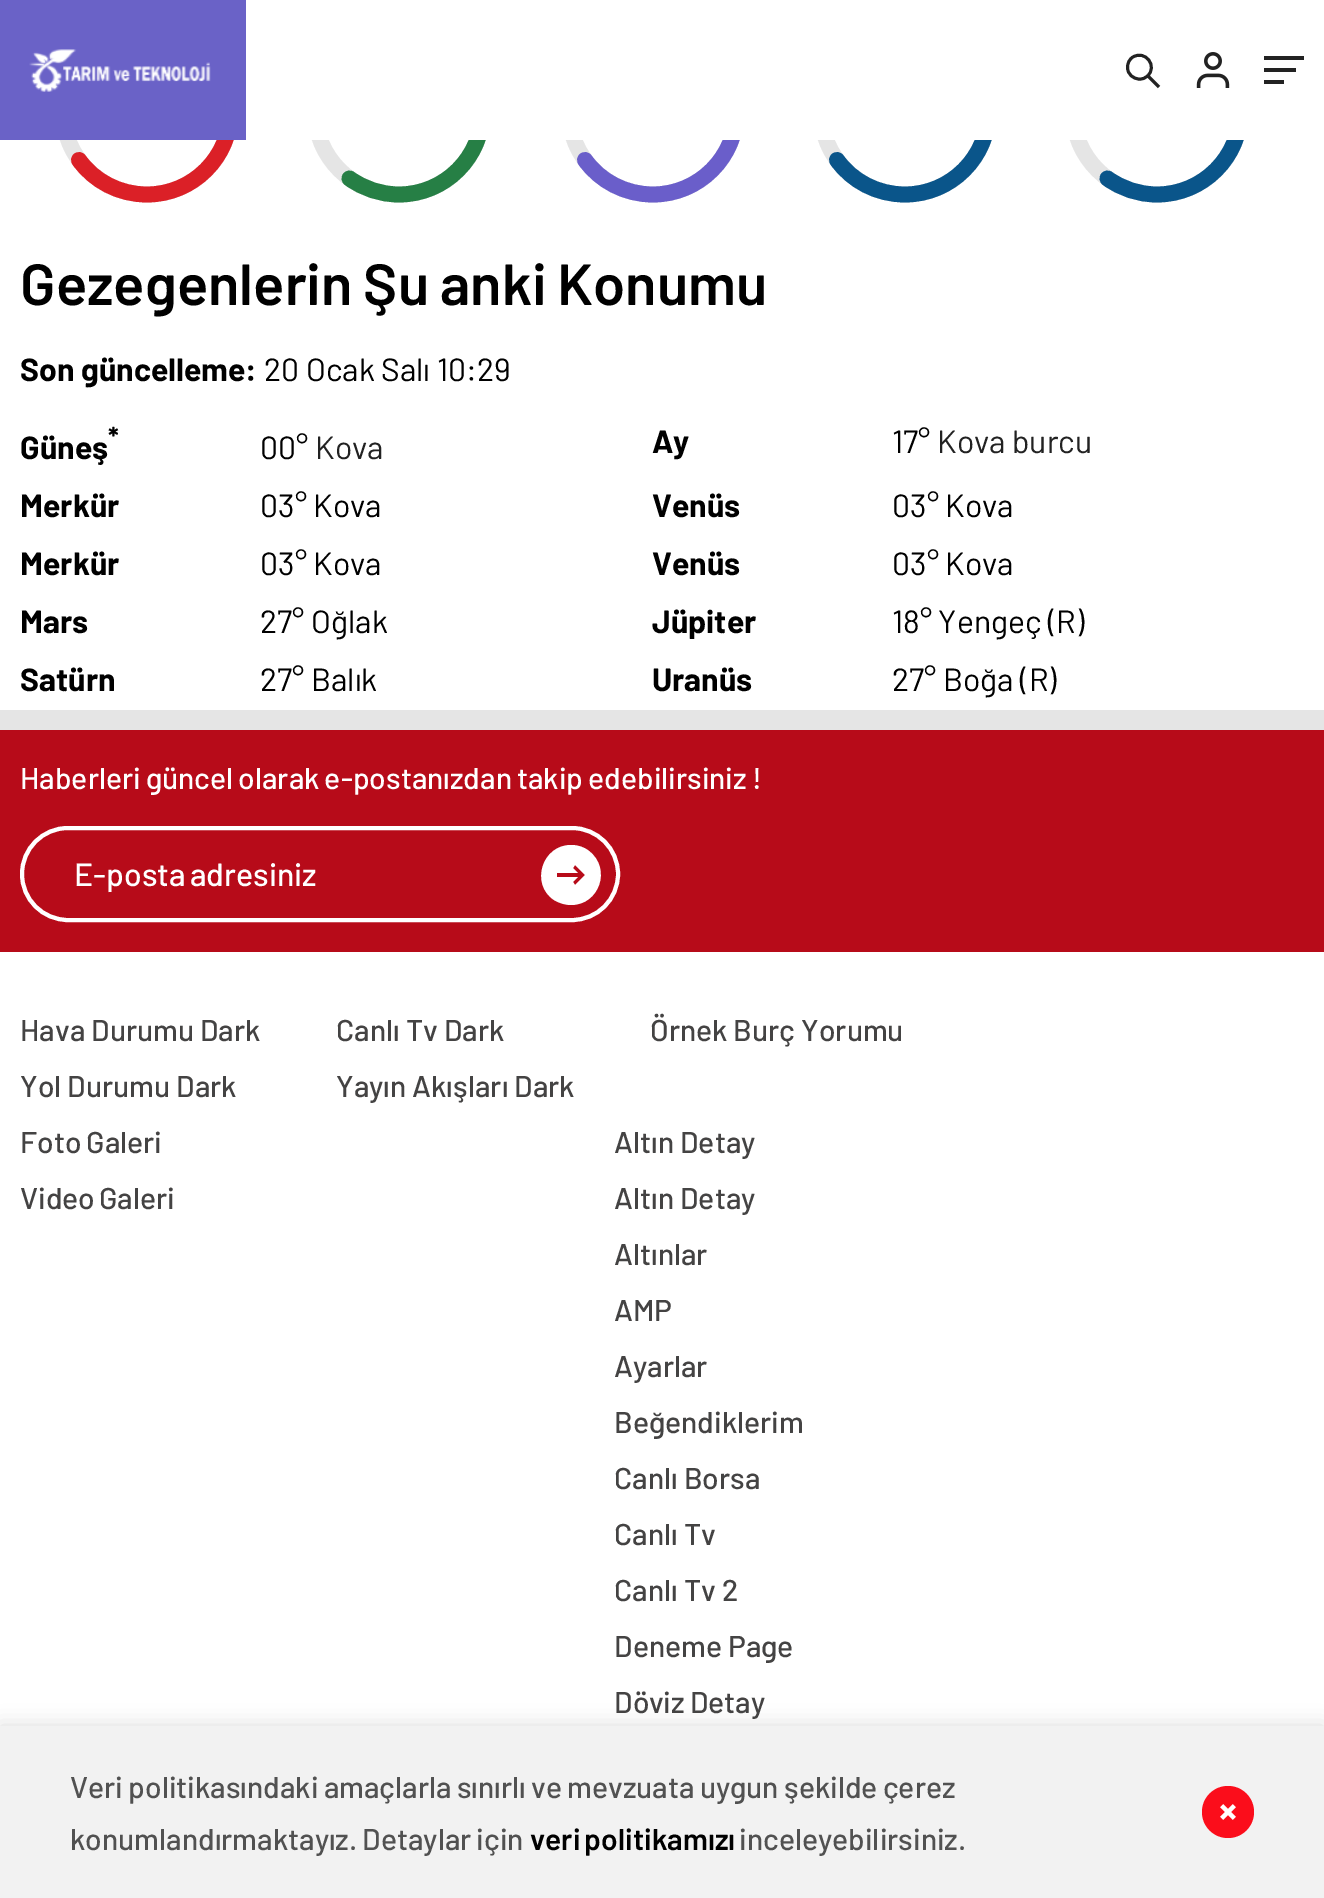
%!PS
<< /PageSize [1324 1898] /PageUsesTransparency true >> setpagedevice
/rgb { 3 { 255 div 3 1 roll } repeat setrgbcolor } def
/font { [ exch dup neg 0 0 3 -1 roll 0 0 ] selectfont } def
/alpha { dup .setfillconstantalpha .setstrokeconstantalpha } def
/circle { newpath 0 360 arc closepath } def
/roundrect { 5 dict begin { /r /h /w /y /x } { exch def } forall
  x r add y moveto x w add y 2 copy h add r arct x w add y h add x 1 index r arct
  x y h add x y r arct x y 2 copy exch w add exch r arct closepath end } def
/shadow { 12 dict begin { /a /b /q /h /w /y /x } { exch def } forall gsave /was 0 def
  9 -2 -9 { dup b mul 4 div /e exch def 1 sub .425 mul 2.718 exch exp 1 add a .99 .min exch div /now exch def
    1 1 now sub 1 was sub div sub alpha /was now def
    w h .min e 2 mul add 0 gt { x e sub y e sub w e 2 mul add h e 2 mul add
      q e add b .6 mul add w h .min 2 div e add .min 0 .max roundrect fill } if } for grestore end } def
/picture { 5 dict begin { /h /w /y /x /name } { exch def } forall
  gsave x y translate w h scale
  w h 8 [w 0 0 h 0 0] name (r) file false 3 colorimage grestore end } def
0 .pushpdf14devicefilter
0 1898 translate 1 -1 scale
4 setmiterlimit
229 229 229 rgb
0 0 1324 1898 rectfill
255 255 255 rgb
0 140 1324 570 rectfill
229 229 229 rgb
15.8 setlinewidth
399 27 moveto 445 27 482.5 64.5 482.5 111 curveto 482.5 157 445 194.5 399 194.5 curveto 352.5 194.5 315 157 315 111 curveto 315 64.5 352.5 27 399 27 curveto stroke
38 127 69 rgb
1 setlinecap
399 27 moveto 445 27 482.5 64.5 482.5 111 curveto 482.5 157 445 194.5 399 194.5 curveto 380.5 194.5 363.5 188.5 349.5 178.5 curveto stroke
229 229 229 rgb
0 setlinecap
653 27 moveto 699 27 736.5 64.5 736.5 111 curveto 736.5 157 699 194.5 653 194.5 curveto 606.5 194.5 569 157 569 111 curveto 569 64.5 606.5 27 653 27 curveto stroke
106 94 202 rgb
1 setlinecap
653 27 moveto 699 27 736.5 64.5 736.5 111 curveto 736.5 157 699 194.5 653 194.5 curveto 625 194.5 600 181 585 160 curveto stroke
229 229 229 rgb
0 setlinecap
905 27 moveto 951 27 988.5 64.5 988.5 111 curveto 988.5 157 951 194.5 905 194.5 curveto 858.5 194.5 821 157 821 111 curveto 821 64.5 858.5 27 905 27 curveto stroke
10 85 138 rgb
1 setlinecap
905 27 moveto 951 27 988.5 64.5 988.5 111 curveto 988.5 157 951 194.5 905 194.5 curveto 877 194.5 852 181 837 160 curveto stroke
229 229 229 rgb
0 setlinecap
1157 27 moveto 1203 27 1240.5 64.5 1240.5 111 curveto 1240.5 157 1203 194.5 1157 194.5 curveto 1110.5 194.5 1073 157 1073 111 curveto 1073 64.5 1110.5 27 1157 27 curveto stroke
10 85 138 rgb
1 setlinecap
1157 27 moveto 1203 27 1240.5 64.5 1240.5 111 curveto 1240.5 157 1203 194.5 1157 194.5 curveto 1138.5 194.5 1121.5 188.5 1107.5 178.5 curveto stroke
255 255 255 rgb
246 0 1078 140 rectfill
229 229 229 rgb
0 setlinecap
147 27 moveto 193 27 230.5 64.5 230.5 111 curveto 230.5 157 193 194.5 147 194.5 curveto 100.5 194.5 63 157 63 111 curveto 63 64.5 100.5 27 147 27 curveto stroke
219 32 39 rgb
1 setlinecap
147 27 moveto 193 27 230.5 64.5 230.5 111 curveto 230.5 157 193 194.5 147 194.5 curveto 119 194.5 94 181 79 160 curveto stroke
106 98 199 rgb
0 0 246 140 rectfill
(img/1.rgb) 29 49 182 43 picture
34 34 34 rgb
2.9 setlinewidth
1148.5 76.5 moveto 1159 87 lineto closepath 1127.5 67.5 moveto 1127.5 63 1129.5 59 1133 57 curveto 1145.5 49.5 1158 66.5 1147.5 76 curveto 1145 78 1142.5 79.5 1139.5 79 curveto 1133 79 1127.5 74 1127.5 67.5 curveto closepath stroke
(img/2.rgb) 1196 52 34 36 picture
[
  [1264 56 40 4 34 34 34]
  [1264 68 32 4 34 34 34]
  [1264 80 20 4 34 34 34]
  [0 952 1324 774 255 255 255]
  [0 730 1324 222 183 11 25]
] { aload pop rgb rectfill } forall
255 255 255 rgb
4 setlinewidth
0 setlinecap
22 828 596 92 46 roundrect stroke
571 905 moveto 565 905 559 903 554 900 curveto 530 884 542 845 571 845 curveto 578 845 584 847 589 851 curveto 612 869 599 905 571 905 curveto closepath 557 873 moveto 557 877 lineto 578 877 lineto 573 882 lineto 575 885 lineto 585 875 lineto 575 865 lineto 573 868 lineto 578 873 lineto closepath fill
34 34 34 rgb
0 1726 1324 172 0 10 0.16 shadow
242 242 242 rgb
0 1726 1324 172 rectfill
251 13 27 rgb
1228 1812 26 circle fill
(img/3.rgb) 1220 1804 16 16 picture
/Barlow-SemiBold 58 font
0 0 0 rgb
20 305 moveto -1 0 32 (Gezegenlerin Şu anki Konumu) widthshow
/Barlow-Bold 32 font
20 381 moveto (Son güncelleme:) show
/Barlow-Regular 32 font
264 381 moveto (20 Ocak Salı 10:29) show
/Barlow-Bold 27 font
108 447 moveto (*) show
/Barlow-Bold 32 font
20 459 moveto (Güneş) show
/Barlow-Regular 32 font
260 459 moveto (00°) show
34 34 34 rgb
315 459 moveto (Kova) show
/Barlow-Bold 32 font
0 0 0 rgb
652 453 moveto (Ay) show
/Barlow-Regular 32 font
892 453 moveto (17°) show
34 34 34 rgb
937 453 moveto (Kova burcu) show
/Barlow-Bold 32 font
0 0 0 rgb
20 517 moveto (Merkür) show
/Barlow-Regular 32 font
260 517 moveto (03° Kova) show
/Barlow-Bold 32 font
652 517 moveto (Venüs) show
/Barlow-Regular 32 font
892 517 moveto (03° Kova) show
/Barlow-Bold 32 font
20 575 moveto (Merkür) show
/Barlow-Regular 32 font
260 575 moveto (03° Kova) show
/Barlow-Bold 32 font
652 575 moveto (Venüs) show
/Barlow-Regular 32 font
892 575 moveto (03° Kova) show
/Barlow-Bold 32 font
20 633 moveto (Mars) show
/Barlow-Regular 32 font
260 633 moveto (27° Oğlak) show
/Barlow-Bold 32 font
652 633 moveto (Jüpiter) show
/Barlow-Regular 32 font
892 633 moveto (18° Yengeç \(R\)) show
/Barlow-Bold 32 font
20 691 moveto (Satürn) show
/Barlow-Regular 32 font
260 691 moveto (27° Balık) show
/Barlow-Bold 32 font
652 691 moveto (Uranüs) show
/Barlow-Regular 32 font
892 691 moveto (27° Boğa \(R\)) show
/Barlow-Medium 30 font
255 255 255 rgb
20 789 moveto -1 0 32 (Haberleri güncel olarak e-postanızdan takip edebilirsiniz !) widthshow
/Barlow-Medium 32 font
74 886 moveto -2 0 32 (E-posta adresiniz) widthshow
/Barlow-Medium 30 font
68 67 67 rgb
[
  [(Hava Durumu Dark) 20 1041]
  [(Yol Durumu Dark) 20 1097]
  [(Canlı Tv Dark) 336 1041]
  [(Yayın Akışları Dark) 336 1097]
  [(Örnek Burç Yorumu) 650 1041]
] { aload pop moveto show } forall
20 1153 moveto -1 0 32 (Foto Galeri) widthshow
20 1209 moveto -2 0 32 (Video Galeri) widthshow
[
  [(Altın Detay) 614 1153]
  [(Altın Detay) 614 1209]
  [(Altınlar) 614 1265]
  [(AMP) 614 1321]
  [(Ayarlar) 614 1377]
  [(Beğendiklerim) 614 1433]
  [(Canlı Borsa) 614 1489]
  [(Canlı Tv) 614 1545]
  [(Canlı Tv 2) 614 1601]
  [(Deneme Page) 614 1657]
] { aload pop moveto show } forall
614 1713 moveto -1 0 32 (Döviz Detay) widthshow
81 81 81 rgb
70 1798 moveto -0.75 0 32 (Veri politikasındaki amaçlarla sınırlı ve mevzuata uygun şekilde çerez) widthshow
70 1850 moveto -1 0 32 (konumlandırmaktayız. Detaylar için) widthshow
/Barlow-SemiBold 30 font
0 0 0 rgb
530 1850 moveto -2 0 32 (veri politikamızı) widthshow
/Barlow-Medium 30 font
81 81 81 rgb
739 1850 moveto (inceleyebilirsiniz.) show
.poppdf14devicefilter showpage
